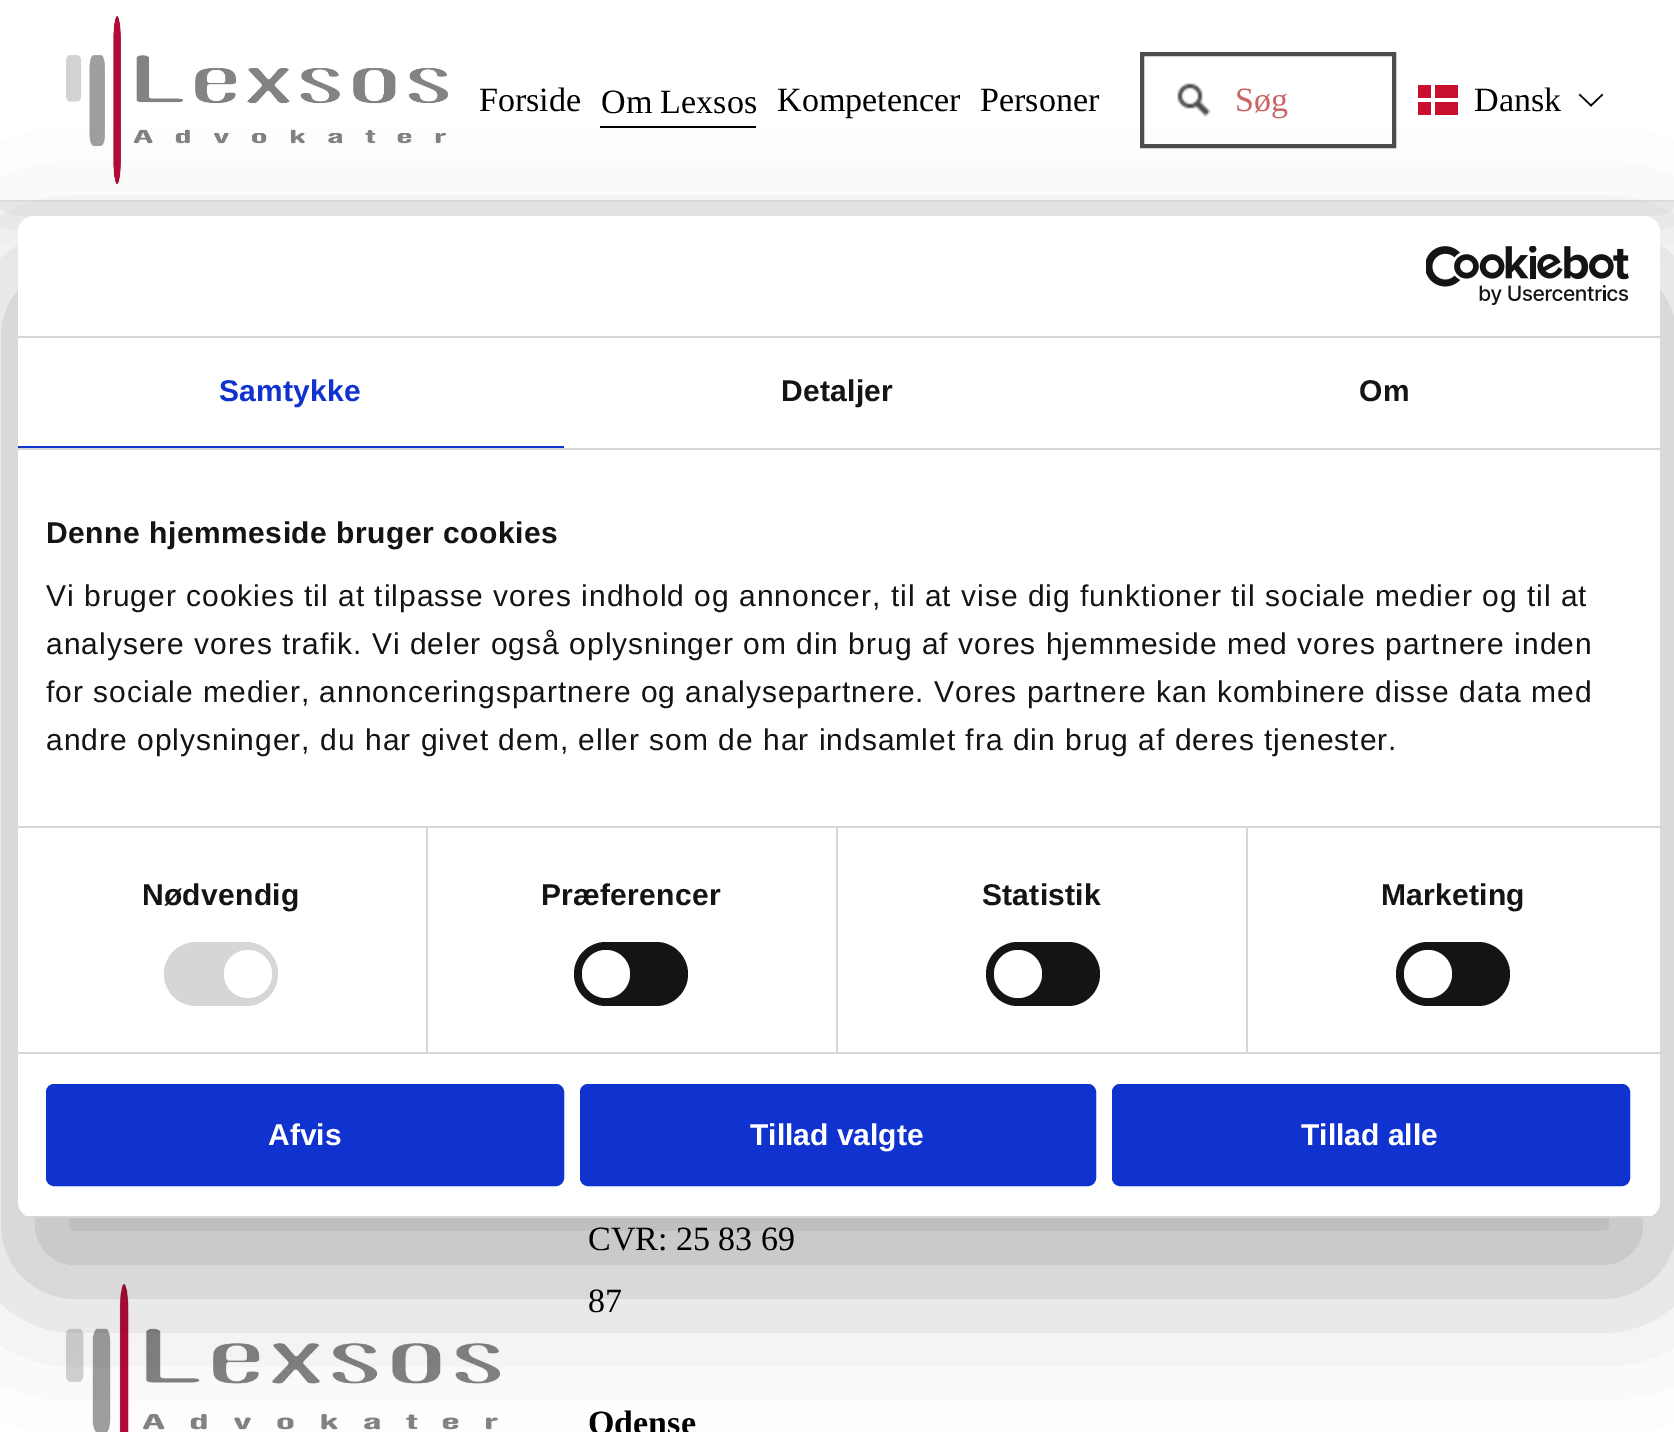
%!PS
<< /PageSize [1674 1432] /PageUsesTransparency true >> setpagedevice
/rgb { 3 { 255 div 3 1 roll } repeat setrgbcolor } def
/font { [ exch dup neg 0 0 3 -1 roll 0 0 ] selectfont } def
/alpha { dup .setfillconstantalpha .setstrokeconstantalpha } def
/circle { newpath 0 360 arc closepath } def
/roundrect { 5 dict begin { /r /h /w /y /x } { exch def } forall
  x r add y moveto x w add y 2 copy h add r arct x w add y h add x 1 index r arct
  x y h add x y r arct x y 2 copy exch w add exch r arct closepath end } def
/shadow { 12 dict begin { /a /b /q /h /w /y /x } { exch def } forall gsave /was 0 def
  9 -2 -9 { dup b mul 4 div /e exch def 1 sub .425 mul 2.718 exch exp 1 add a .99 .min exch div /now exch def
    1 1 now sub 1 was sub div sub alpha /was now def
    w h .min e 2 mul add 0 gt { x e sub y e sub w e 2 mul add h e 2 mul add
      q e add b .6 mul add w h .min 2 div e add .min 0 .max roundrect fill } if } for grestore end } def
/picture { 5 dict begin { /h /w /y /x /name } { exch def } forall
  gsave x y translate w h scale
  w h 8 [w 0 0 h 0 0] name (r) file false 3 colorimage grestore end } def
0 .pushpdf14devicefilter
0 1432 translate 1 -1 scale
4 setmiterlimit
255 255 255 rgb
0 0 1674 1432 rectfill
gsave
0 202 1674 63 rectclip
217 217 217 rgb
0 6 1674 202 0 30 1 shadow
grestore
(img/1.rgb) 66 16 382 168 picture
0 0 0 rgb
600 126 156 2 rectfill
(img/2.rgb) 1177 83 34 34 picture
77 77 77 rgb
4 setlinewidth
1142 54 252 92 rectstroke
[
  [1418 85 40 30 200 16 46]
  [1431 85 4 30 255 255 255]
  [1418 98 40 4 255 255 255]
] { aload pop rgb rectfill } forall
0 0 0 rgb
1.5 setlinewidth
2 setlinecap
1602 95 moveto 1591 105.5 lineto 1580 95 lineto stroke
223 224 225 rgb
0 200 1674 2 rectfill
(img/3.rgb) 66 1284 434 148 picture
0 0 0 rgb
18 280 1642 1002 16 68 0.3 shadow
255 255 255 rgb
18 216 1642 1002 16 roundrect fill
214 214 214 rgb
18 336 1642 2 rectfill
(img/4.rgb) 1426 246 203 60 picture
[
  [18 448 1642 2 214 214 214]
  [18 446 546 2 16 50 207]
  [18 826 1642 2 214 214 214]
  [18 1052 1642 2 214 214 214]
  [426 828 2 224 214 214 214]
] { aload pop rgb rectfill } forall
164 942 114 64 32 roundrect fill
255 255 255 rgb
248 974 24 circle fill
214 214 214 rgb
836 828 2 224 rectfill
20 20 20 rgb
574 942 114 64 32 roundrect fill
255 255 255 rgb
606 974 24 circle fill
214 214 214 rgb
1246 828 2 224 rectfill
20 20 20 rgb
986 942 114 64 32 roundrect fill
255 255 255 rgb
1018 974 24 circle fill
20 20 20 rgb
1396 942 114 64 32 roundrect fill
255 255 255 rgb
1428 974 24 circle fill
gsave
18 216 1642 1002 16 roundrect clip newpath
214 214 214 rgb
18 1216 1642 2 rectfill
grestore
16 50 207 rgb
48 1086 514 98 6 roundrect gsave fill grestore
4 setlinewidth
0 setlinecap
stroke
582 1086 512 98 6 roundrect gsave fill grestore
stroke
1114 1086 514 98 6 roundrect gsave fill grestore
stroke
/LiberationSerif-Regular 34 font
0 0 0 rgb
[
  [(Forside) 479 111]
  [(Om Lexsos) 601 113]
  [(Kompetencer) 777 111]
  [(Personer) 980 111]
] { aload pop moveto show } forall
202 101 101 rgb
1235 111 moveto (Søg) show
0 0 0 rgb
[
  [(Dansk) 1474 111]
  [(CVR: 25 83 69) 588 1250]
  [(87) 588 1312]
] { aload pop moveto show } forall
/LiberationSerif-Bold 34 font
588 1434 moveto (Odense) show
/LiberationSans-Bold 30 font
16 50 207 rgb
219 401 moveto 0.25 0 (Samtykke) ashow
20 20 20 rgb
781 401 moveto 0.25 0 (Detaljer) ashow
1359 401 moveto 0.25 0 (Om) ashow
46 543 moveto 0.5 0 (Denne hjemmeside bruger cookies) ashow
/LiberationSans-Regular 30 font
46 606 moveto 1 0 (Vi bruger cookies til at tilpasse vores indhold og annoncer, til at vise dig funktioner til sociale medier og til at) ashow
46 654 moveto 1 0 (analysere vores trafik. Vi deler også oplysninger om din brug af vores hjemmeside med vores partnere inden) ashow
46 702 moveto 1 0 (for sociale medier, annonceringspartnere og analysepartnere. Vores partnere kan kombinere disse data med) ashow
46 750 moveto 1 0 (andre oplysninger, du har givet dem, eller som de har indsamlet fra din brug af deres tjenester.) ashow
/LiberationSans-Bold 30 font
142 905 moveto 0.25 0 (Nødvendig) ashow
541 905 moveto 0.25 0 (Præferencer) ashow
982 905 moveto 0.25 0 (Statistik) ashow
1381 905 moveto 0.25 0 (Marketing) ashow
255 255 255 rgb
[
  [(Afvis) 268 1145]
  [(Tillad valgte) 750 1145]
  [(Tillad alle) 1301 1145]
] { aload pop moveto show } forall
.poppdf14devicefilter showpage
